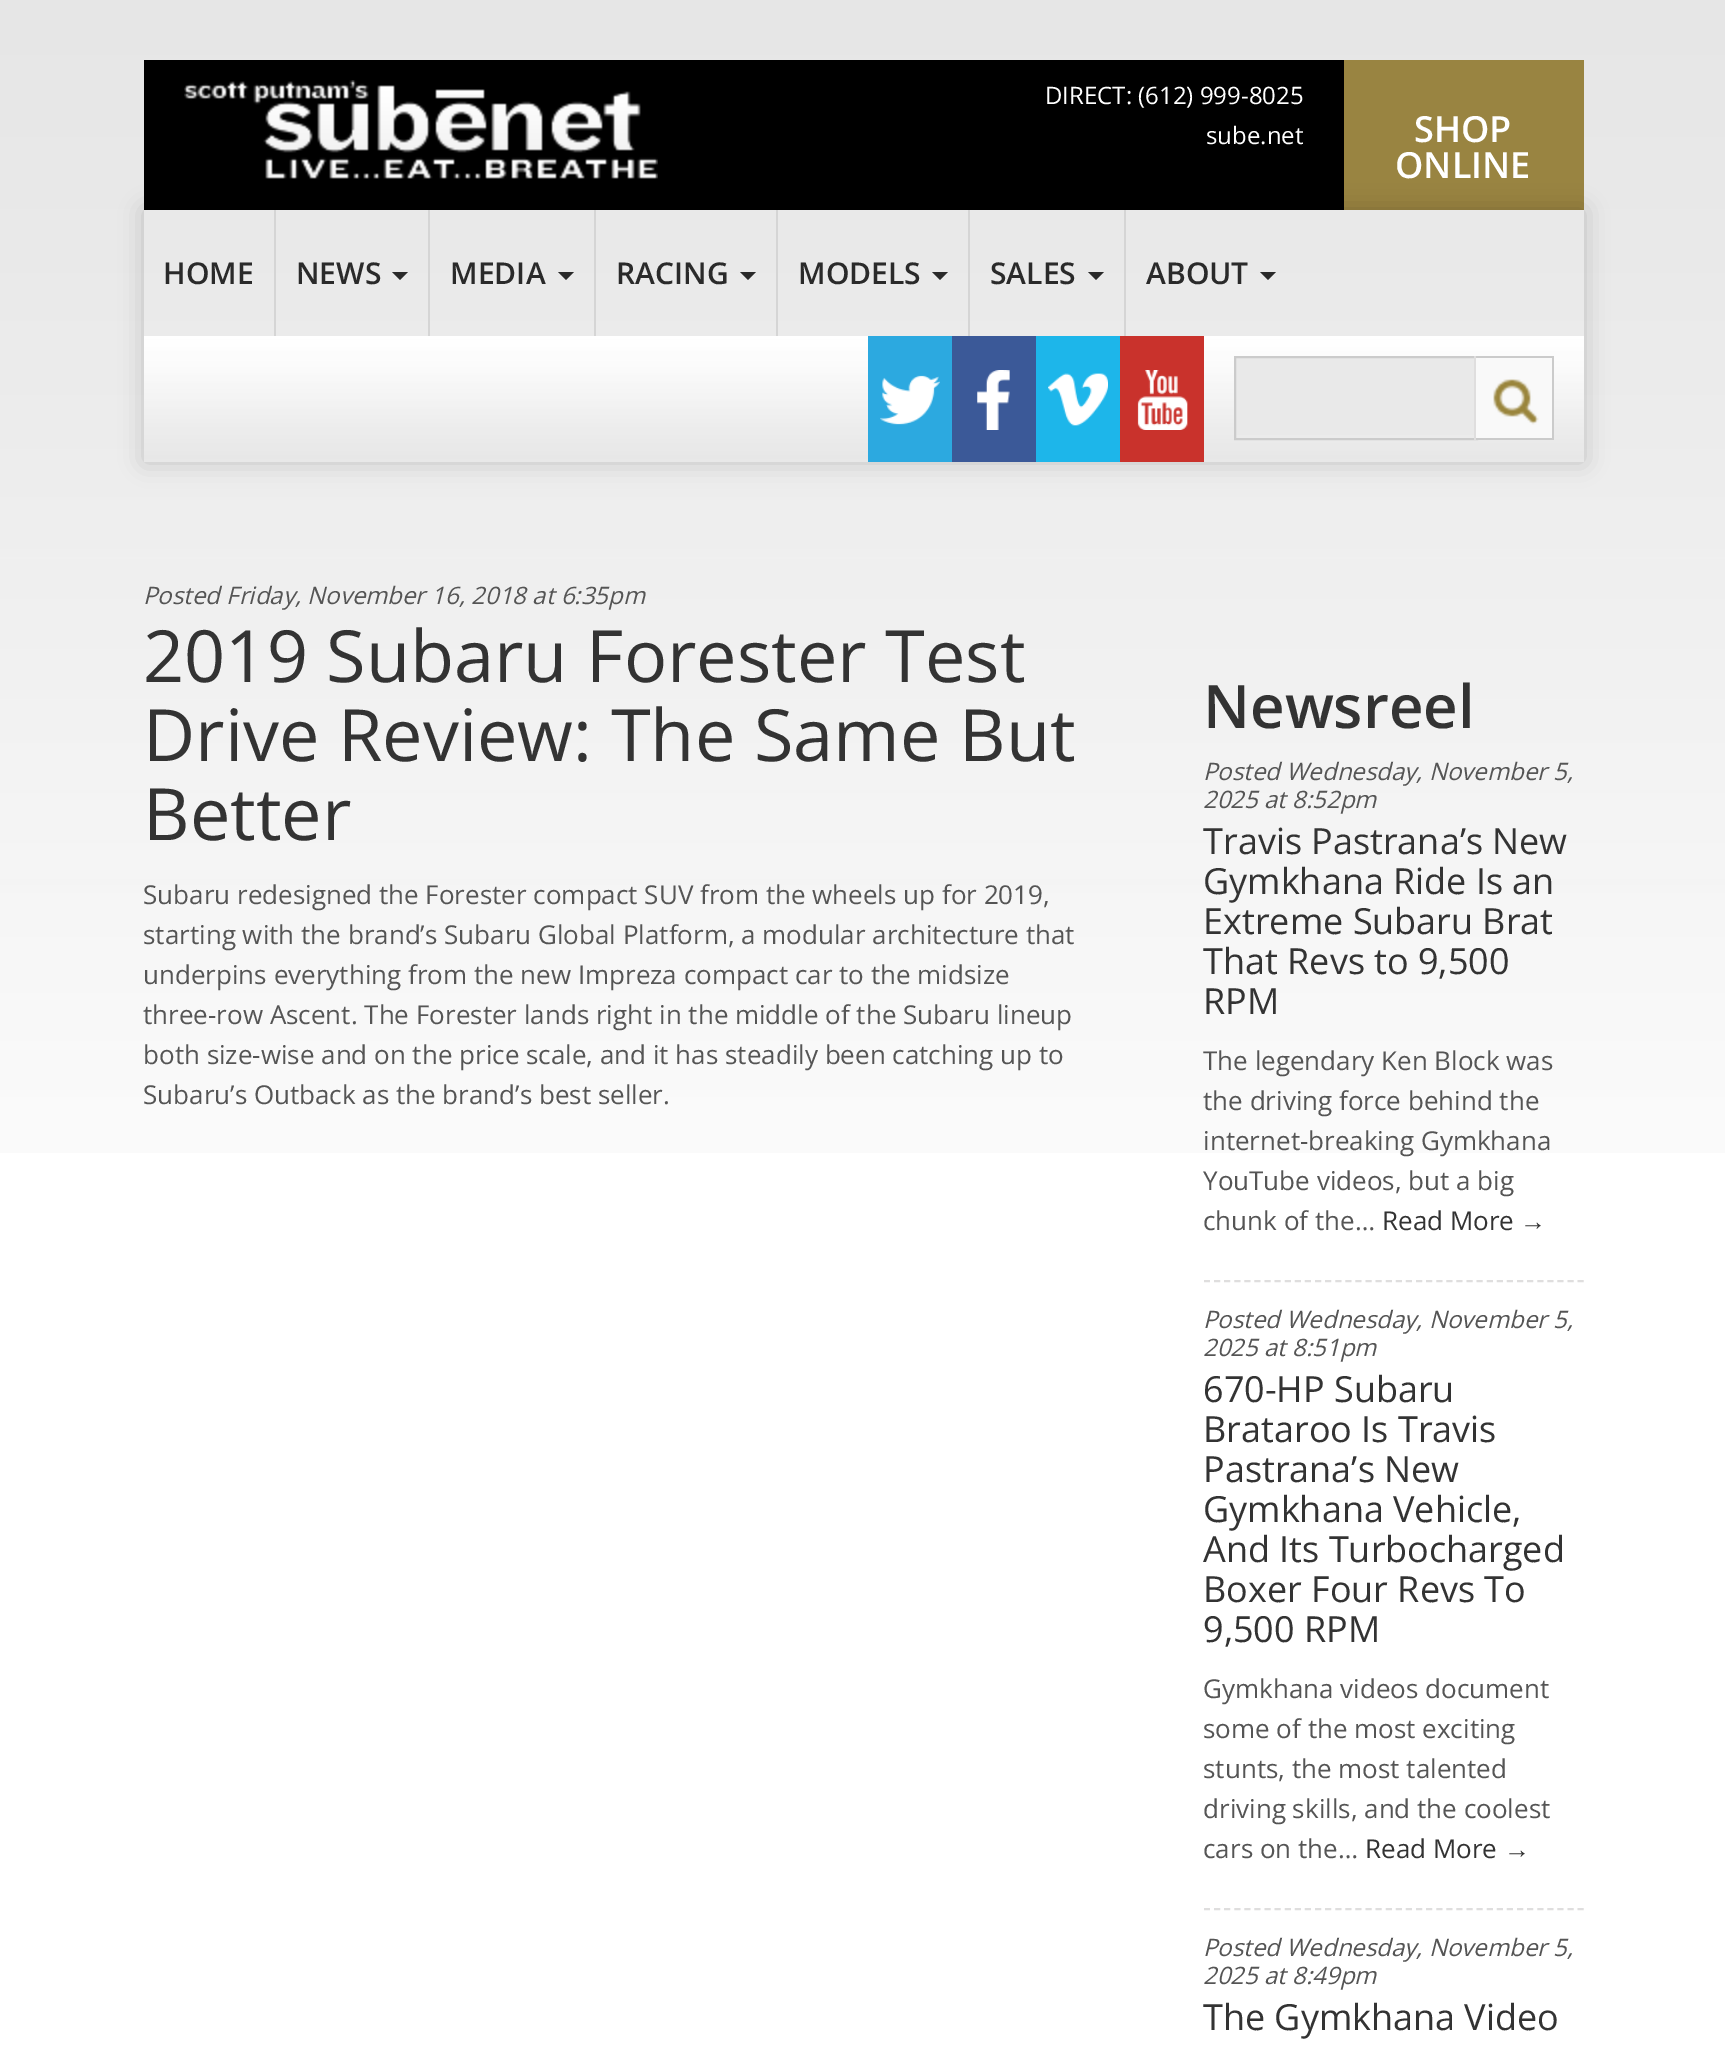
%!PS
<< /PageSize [1725 2047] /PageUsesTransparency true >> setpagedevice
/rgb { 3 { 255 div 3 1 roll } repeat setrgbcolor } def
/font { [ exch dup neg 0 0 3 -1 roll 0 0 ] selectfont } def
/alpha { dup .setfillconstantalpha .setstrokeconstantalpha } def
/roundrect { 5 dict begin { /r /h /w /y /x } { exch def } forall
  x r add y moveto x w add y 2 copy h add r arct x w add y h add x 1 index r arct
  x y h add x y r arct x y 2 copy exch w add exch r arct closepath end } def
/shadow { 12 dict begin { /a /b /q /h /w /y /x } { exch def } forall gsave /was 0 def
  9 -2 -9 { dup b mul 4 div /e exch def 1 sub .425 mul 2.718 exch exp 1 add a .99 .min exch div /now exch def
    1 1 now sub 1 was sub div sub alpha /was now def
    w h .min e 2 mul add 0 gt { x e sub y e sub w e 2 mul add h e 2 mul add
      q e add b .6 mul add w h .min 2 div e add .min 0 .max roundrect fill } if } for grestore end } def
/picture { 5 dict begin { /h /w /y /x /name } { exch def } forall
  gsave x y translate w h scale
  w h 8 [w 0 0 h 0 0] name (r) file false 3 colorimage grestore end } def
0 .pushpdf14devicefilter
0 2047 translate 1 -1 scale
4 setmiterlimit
255 255 255 rgb
0 0 1725 2047 rectfill
(img/1.rgb) 0 0 1725 1153 picture
0 0 0 rgb
144 60 1200 150 rectfill
(img/2.rgb) 184 80 474 99 picture
153 132 65 rgb
1344 60 240 150 rectfill
gsave
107 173 moveto 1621 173 lineto 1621 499 lineto 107 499 lineto closepath 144 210 moveto 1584 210 lineto 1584 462 lineto 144 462 lineto closepath eoclip newpath
0 0 0 rgb
144 210 1440 252 0 12 0.18 shadow
grestore
(img/3.rgb) 144 336 1440 126 picture
213 213 213 rgb
274 210 2 126 rectfill
42 42 42 rgb
392 272 moveto 408 272 lineto 400 280 lineto closepath fill
213 213 213 rgb
428 210 2 126 rectfill
42 42 42 rgb
558 272 moveto 574 272 lineto 566 280 lineto closepath fill
213 213 213 rgb
594 210 2 126 rectfill
42 42 42 rgb
740 272 moveto 756 272 lineto 748 280 lineto closepath fill
213 213 213 rgb
776 210 2 126 rectfill
42 42 42 rgb
932 272 moveto 948 272 lineto 940 280 lineto closepath fill
213 213 213 rgb
968 210 2 126 rectfill
42 42 42 rgb
1088 272 moveto 1104 272 lineto 1096 280 lineto closepath fill
213 213 213 rgb
1124 210 2 126 rectfill
42 42 42 rgb
1260 272 moveto 1276 272 lineto 1268 280 lineto closepath fill
44 169 224 rgb
868 336 84 126 rectfill
(img/4.rgb) 880 375 60 50 picture
59 89 152 rgb
952 336 84 126 rectfill
(img/5.rgb) 977 370 33 60 picture
29 182 234 rgb
1036 336 84 126 rectfill
(img/6.rgb) 1048 373 60 53 picture
201 50 44 rgb
1120 336 84 126 rectfill
(img/7.rgb) 1137 370 51 60 picture
233 233 233 rgb
1236 358 238 77 rectfill
203 203 203 rgb
2 setlinewidth
1235 357 242 82 rectstroke
(img/8.rgb) 1476 358 76 80 picture
[
  [1474 356 80 2 203 203 203]
  [1552 356 2 84 203 203 203]
  [1474 438 80 2 203 203 203]
  [1474 356 2 84 223 222 222]
] { aload pop rgb rectfill } forall
[6 4.1] 0 setdash
1204 1281 moveto 1584 1281 lineto stroke
1204 1909 moveto 1584 1909 lineto stroke
/OpenSans-Regular 24 font
255 255 255 rgb
1045 104 moveto (DIRECT: \(612\) 999-8025) show
1206 144 moveto (sube.net) show
/OpenSans-SemiBold 36 font
1414 142 moveto (SHOP) show
1395 178 moveto (ONLINE) show
/OpenSans-SemiBold 30 font
42 42 42 rgb
[
  [(HOME) 163 284]
  [(NEWS) 296 284]
  [(MEDIA) 450 284]
  [(RACING) 616 284]
  [(MODELS) 798 284]
  [(SALES) 990 284]
  [(ABOUT) 1146 284]
] { aload pop moveto show } forall
/OpenSans-Italic 24 font
85 85 85 rgb
143 604 moveto (Posted Friday, November 16, 2018 at 6:35pm) show
/OpenSans-Regular 72 font
51 51 51 rgb
[
  [(2019 Subaru Forester Test) 143 682]
  [(Drive Review: The Same But) 143 761]
  [(Better) 143 840]
] { aload pop moveto show } forall
/OpenSans-Regular 26 font
85 85 85 rgb
[
  [(Subaru redesigned the Forester compact SUV from the wheels up for 2019,) 143 904]
  [(starting with the brand’s Subaru Global Platform, a modular architecture that) 143 944]
  [(underpins everything from the new Impreza compact car to the midsize) 143 984]
  [(three-row Ascent. The Forester lands right in the middle of the Subaru lineup) 143 1024]
  [(both size-wise and on the price scale, and it has steadily been catching up to) 143 1064]
  [(Subaru’s Outback as the brand’s best seller.) 143 1104]
] { aload pop moveto show } forall
/OpenSans-SemiBold 60 font
51 51 51 rgb
1203 728 moveto (Newsreel) show
/OpenSans-Italic 24 font
85 85 85 rgb
1203 780 moveto (Posted Wednesday, November 5,) show
1203 808 moveto (2025 at 8:52pm) show
/OpenSans-Regular 36 font
51 51 51 rgb
[
  [(Travis Pastrana’s New) 1203 854]
  [(Gymkhana Ride Is an) 1203 894]
  [(Extreme Subaru Brat) 1203 934]
  [(That Revs to 9,500) 1203 974]
  [(RPM) 1203 1014]
] { aload pop moveto show } forall
/OpenSans-Regular 26 font
85 85 85 rgb
[
  [(The legendary Ken Block was) 1203 1070]
  [(the driving force behind the) 1203 1110]
  [(internet-breaking Gymkhana) 1203 1150]
  [(YouTube videos, but a big) 1203 1190]
  [(chunk of the…) 1203 1230]
] { aload pop moveto show } forall
51 51 51 rgb
1382 1230 moveto (Read More) show
/LiberationSerif-Regular 26 font
1520 1230 moveto (→) show
/OpenSans-Italic 24 font
85 85 85 rgb
1203 1328 moveto (Posted Wednesday, November 5,) show
1203 1356 moveto (2025 at 8:51pm) show
/OpenSans-Regular 36 font
51 51 51 rgb
[
  [(670-HP Subaru) 1203 1402]
  [(Brataroo Is Travis) 1203 1442]
  [(Pastrana’s New) 1203 1482]
  [(Gymkhana Vehicle,) 1203 1522]
  [(And Its Turbocharged) 1203 1562]
  [(Boxer Four Revs To) 1203 1602]
  [(9,500 RPM) 1203 1642]
] { aload pop moveto show } forall
/OpenSans-Regular 26 font
85 85 85 rgb
[
  [(Gymkhana videos document) 1203 1698]
  [(some of the most exciting) 1203 1738]
  [(stunts, the most talented) 1203 1778]
  [(driving skills, and the coolest) 1203 1818]
  [(cars on the…) 1203 1858]
] { aload pop moveto show } forall
51 51 51 rgb
1365 1858 moveto (Read More) show
/LiberationSerif-Regular 26 font
1504 1858 moveto (→) show
/OpenSans-Italic 24 font
85 85 85 rgb
1203 1956 moveto (Posted Wednesday, November 5,) show
1203 1984 moveto (2025 at 8:49pm) show
/OpenSans-Regular 36 font
51 51 51 rgb
1203 2030 moveto (The Gymkhana Video) show
.poppdf14devicefilter showpage
